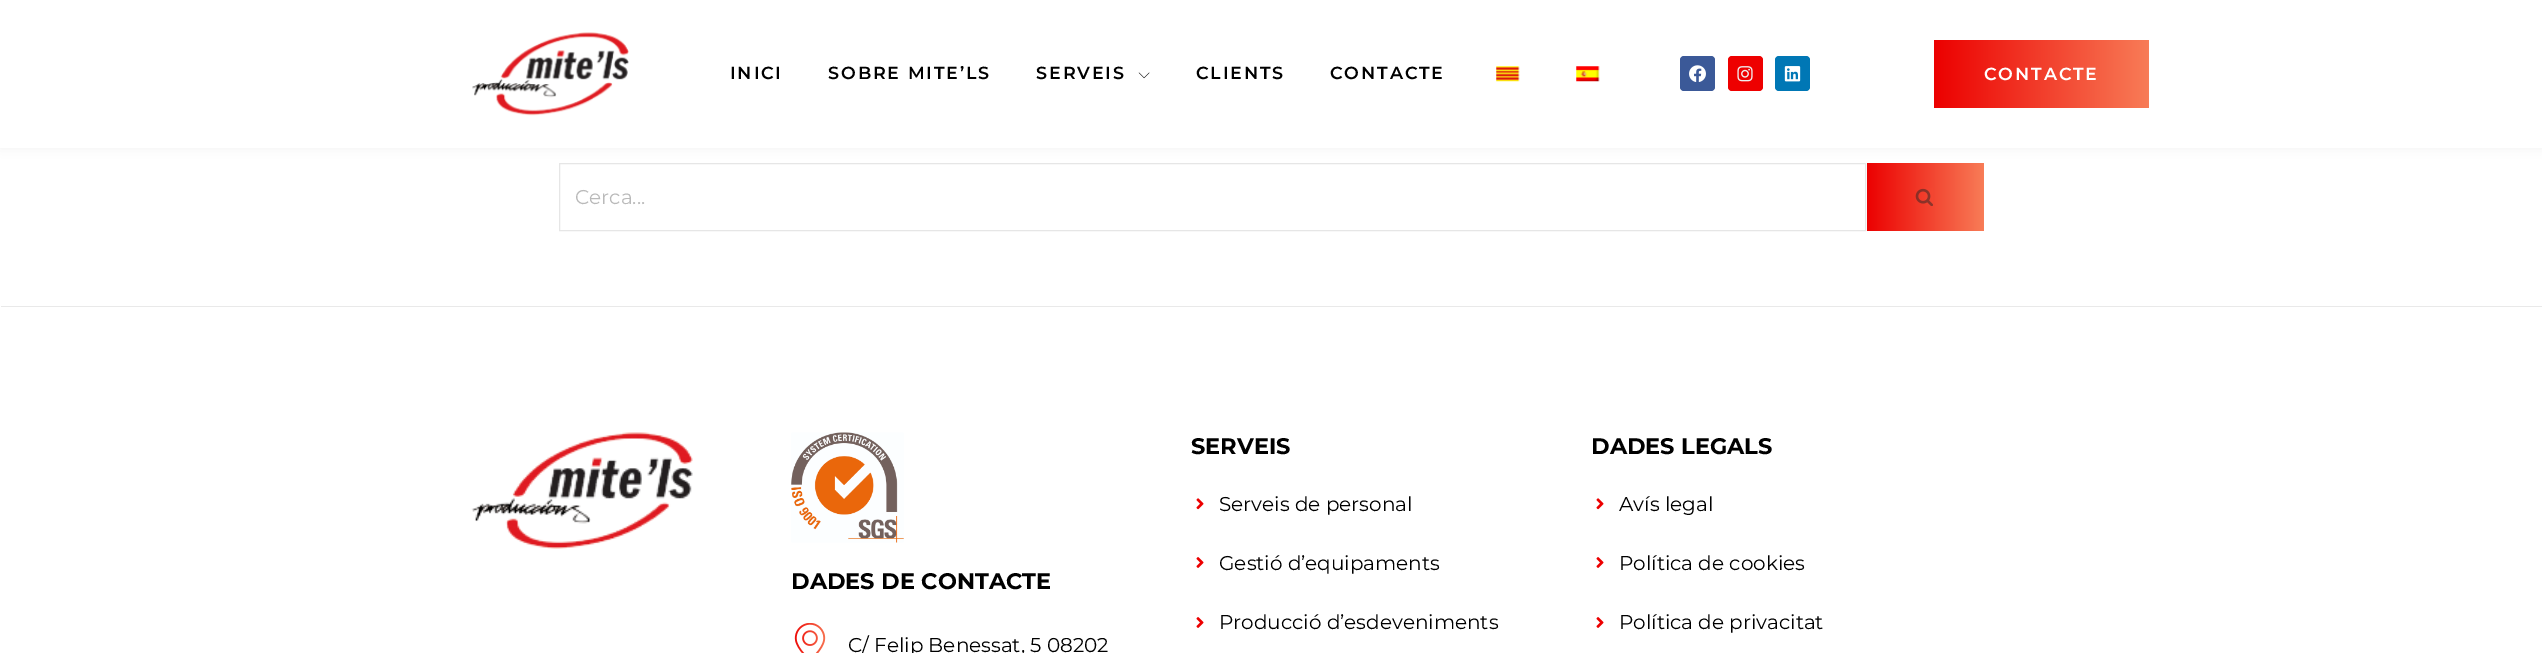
%!PS
<< /PageSize [2542 653] /PageUsesTransparency true >> setpagedevice
/rgb { 3 { 255 div 3 1 roll } repeat setrgbcolor } def
/font { [ exch dup neg 0 0 3 -1 roll 0 0 ] selectfont } def
/alpha { dup .setfillconstantalpha .setstrokeconstantalpha } def
/roundrect { 5 dict begin { /r /h /w /y /x } { exch def } forall
  x r add y moveto x w add y 2 copy h add r arct x w add y h add x 1 index r arct
  x y h add x y r arct x y 2 copy exch w add exch r arct closepath end } def
/shadow { 12 dict begin { /a /b /q /h /w /y /x } { exch def } forall gsave /was 0 def
  9 -2 -9 { dup b mul 4 div /e exch def 1 sub .425 mul 2.718 exch exp 1 add a .99 .min exch div /now exch def
    1 1 now sub 1 was sub div sub alpha /was now def
    w h .min e 2 mul add 0 gt { x e sub y e sub w e 2 mul add h e 2 mul add
      q e add b .6 mul add w h .min 2 div e add .min 0 .max roundrect fill } if } for grestore end } def
/picture { 5 dict begin { /h /w /y /x /name } { exch def } forall
  gsave x y translate w h scale
  w h 8 [w 0 0 h 0 0] name (r) file false 3 colorimage grestore end } def
0 .pushpdf14devicefilter
0 653 translate 1 -1 scale
4 setmiterlimit
255 255 255 rgb
0 0 2542 653 rectfill
230 230 230 rgb
559.5 163.5 1306 67 rectstroke
gsave 1867 163 moveto 1984 163 lineto 1984 231 lineto 1867 231 lineto closepath clip newpath
<< /ShadingType 2 /ColorSpace /DeviceRGB /Coords [1866 197 1984 197] /Extend [true true] /Function << /FunctionType 2 /Domain [0 1] /C0 [0.925 0 0] /C1 [0.973 0.486 0.341] /N 1 >> >> shfill grestore
0 0 0 rgb
0 0 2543 148 0 6 0.06 shadow
255 255 255 rgb
0 0 2542 148 rectfill
(img/1.rgb) 472 32 157 84 picture
(img/2.rgb) 1138 72 12 7 picture
(img/3.rgb) 1496 66 24 16 picture
(img/4.rgb) 1576 66 24 16 picture
59 89 152 rgb
1680 56 35 35 4 roundrect fill
(img/5.rgb) 1689 65 17 17 picture
238 0 0 rgb
1728 56 35 35 4 roundrect fill
(img/6.rgb) 1737 66 16 16 picture
0 119 181 rgb
1775 56 35 35 4 roundrect fill
(img/7.rgb) 1784 66 17 16 picture
gsave 1934 40 moveto 2149 40 lineto 2149 108 lineto 1934 108 lineto closepath clip newpath
<< /ShadingType 2 /ColorSpace /DeviceRGB /Coords [1934 74 2149 74] /Extend [true true] /Function << /FunctionType 2 /Domain [0 1] /C0 [0.925 0 0] /C1 [0.973 0.486 0.341] /N 1 >> >> shfill grestore
(img/8.rgb) 1915 188 18 18 picture
233 233 233 rgb
1 306 2541 1 rectfill
(img/9.rgb) 471 432 222 117 picture
(img/10.rgb) 791 432 113 111 picture
(img/11.rgb) 794 623 32 30 picture
(img/12.rgb) 1196 498 8 12 picture
(img/13.rgb) 1196 557 8 11 picture
(img/13.rgb) 1196 617 8 11 picture
(img/12.rgb) 1596 498 8 12 picture
(img/13.rgb) 1596 557 8 11 picture
(img/13.rgb) 1596 617 8 11 picture
/Montserrat-SemiBold 17.5 font
0 0 0 rgb
730 79 moveto 1.9 0 (INICI) ashow
828 79 moveto 1.9 0 (SOBRE MITE’LS) ashow
1036 79 moveto 1.9 0 (SERVEIS) ashow
1196 79 moveto 1.9 0 (CLIENTS) ashow
1330 79 moveto 1.9 0 (CONTACTE) ashow
255 255 255 rgb
1984 80 moveto 1.9 0 (CONTACTE) ashow
/Montserrat-Regular 20 font
186 186 186 rgb
575 204 moveto (Cerca...) show
/Montserrat-Bold 22.5 font
0 0 0 rgb
791 589 moveto (DADES DE CONTACTE) show
/Montserrat-Regular 20 font
848 652 moveto (C/ Felip Benessat, 5 08202) show
/Montserrat-Bold 22.5 font
1191 454 moveto (SERVEIS) show
/Montserrat-Regular 20 font
[
  [(Serveis de personal) 1219 511]
  [(Gestió d’equipaments) 1219 570]
  [(Producció d’esdeveniments) 1219 629]
] { aload pop moveto show } forall
/Montserrat-Bold 22.5 font
1591 454 moveto (DADES LEGALS) show
/Montserrat-Regular 20 font
[
  [(Avís legal) 1619 511]
  [(Política de cookies) 1619 570]
  [(Política de privacitat) 1619 629]
] { aload pop moveto show } forall
.poppdf14devicefilter showpage
